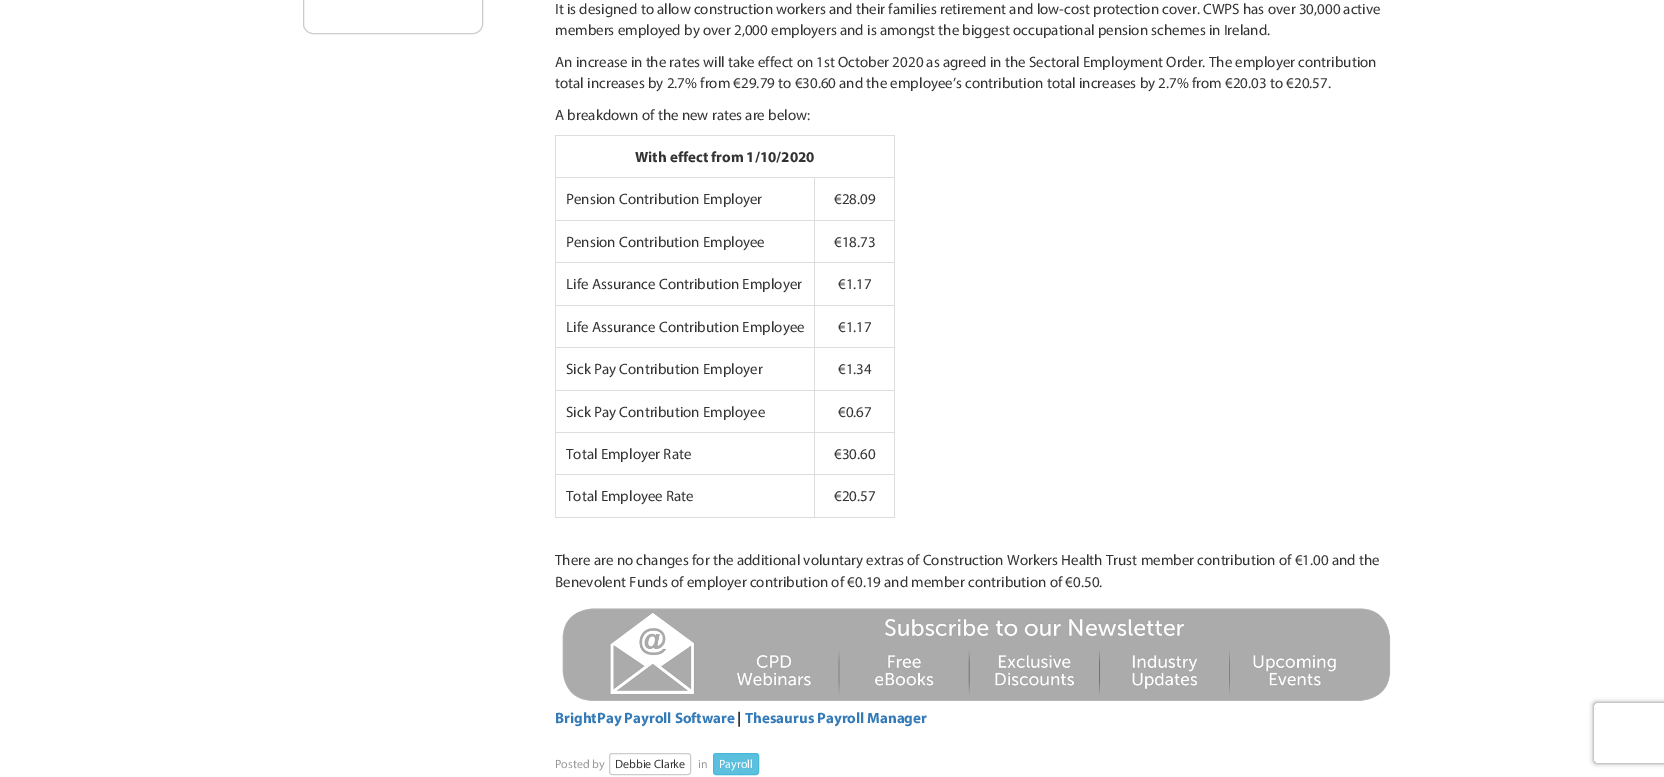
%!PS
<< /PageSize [1664 777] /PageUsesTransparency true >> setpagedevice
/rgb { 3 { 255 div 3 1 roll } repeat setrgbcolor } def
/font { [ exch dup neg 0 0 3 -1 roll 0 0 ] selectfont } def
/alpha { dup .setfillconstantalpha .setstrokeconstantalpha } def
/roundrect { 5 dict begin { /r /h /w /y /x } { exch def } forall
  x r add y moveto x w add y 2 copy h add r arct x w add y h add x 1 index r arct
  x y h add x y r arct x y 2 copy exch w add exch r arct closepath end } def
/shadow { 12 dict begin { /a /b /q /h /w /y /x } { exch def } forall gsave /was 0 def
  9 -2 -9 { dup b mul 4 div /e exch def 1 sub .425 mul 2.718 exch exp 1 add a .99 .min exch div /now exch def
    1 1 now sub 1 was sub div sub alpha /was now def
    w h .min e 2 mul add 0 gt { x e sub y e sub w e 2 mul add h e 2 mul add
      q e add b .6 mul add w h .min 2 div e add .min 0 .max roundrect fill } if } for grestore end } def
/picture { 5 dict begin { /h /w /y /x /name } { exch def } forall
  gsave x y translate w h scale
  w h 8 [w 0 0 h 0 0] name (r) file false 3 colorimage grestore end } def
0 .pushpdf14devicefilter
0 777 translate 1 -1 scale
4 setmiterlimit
255 255 255 rgb
0 0 1664 777 rectfill
204 204 204 rgb
303.5 -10.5 179 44 9.5 roundrect stroke
[
  [555 135 340 1 221 221 221]
  [814 177 81 1 221 221 221]
  [814 220 81 1 221 221 221]
  [814 262 81 1 221 221 221]
  [814 305 81 1 221 221 221]
  [814 347 81 1 221 221 221]
  [814 390 81 1 221 221 221]
  [814 432 81 1 221 221 221]
  [814 474 81 1 221 221 221]
  [894 474 1 44 221 221 221]
  [894 432 1 43 221 221 221]
  [894 390 1 43 221 221 221]
  [894 347 1 44 221 221 221]
  [894 305 1 43 221 221 221]
  [894 262 1 44 221 221 221]
  [894 220 1 43 221 221 221]
  [894 177 1 44 221 221 221]
  [894 135 1 43 221 221 221]
  [814 517 81 1 221 221 221]
  [814 474 1 44 221 221 221]
  [555 474 260 1 221 221 221]
  [814 432 1 43 221 221 221]
  [555 432 260 1 221 221 221]
  [814 390 1 43 221 221 221]
  [555 390 260 1 221 221 221]
  [814 347 1 44 221 221 221]
  [555 347 260 1 221 221 221]
  [814 305 1 43 221 221 221]
  [555 305 260 1 221 221 221]
  [814 262 1 44 221 221 221]
  [555 262 260 1 221 221 221]
  [814 220 1 43 221 221 221]
  [555 220 260 1 221 221 221]
  [814 177 1 44 221 221 221]
  [555 177 260 1 221 221 221]
  [555 517 260 1 221 221 221]
  [555 474 1 44 221 221 221]
  [555 432 1 43 221 221 221]
  [555 390 1 43 221 221 221]
  [555 347 1 44 221 221 221]
  [555 305 1 43 221 221 221]
  [555 262 1 44 221 221 221]
  [555 220 1 43 221 221 221]
  [555 177 1 44 221 221 221]
  [555 135 1 43 221 221 221]
] { aload pop rgb rectfill } forall
(img/1.rgb) 562 608 829 93 picture
204 204 204 rgb
609.5 753.5 81 21 2.5 roundrect stroke
91 192 222 rgb
713.5 753.5 45 21 2.5 roundrect gsave fill grestore
70 184 218 rgb
stroke
gsave
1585 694 moveto 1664 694 lineto 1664 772 lineto 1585 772 lineto closepath 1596 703 moveto 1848 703 lineto 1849 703 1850 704 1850 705 curveto 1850 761 lineto 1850 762 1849 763 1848 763 curveto 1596 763 lineto 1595 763 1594 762 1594 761 curveto 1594 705 lineto 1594 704 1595 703 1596 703 curveto closepath eoclip newpath
128 128 128 rgb
1594 703 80 60 2 2.5 1 shadow
grestore
/Myriad-Regular 15 font
51 51 51 rgb
[
  [(It is designed to allow construction workers and their families retirement and low-cost protection cover. CWPS has over 30,000 active) 555 14]
  [(members employed by over 2,000 employers and is amongst the biggest occupational pension schemes in Ireland.) 555 35]
  [(An increase in the rates will take effect on 1st October 2020 as agreed in the Sectoral Employment Order. The employer contribution) 555 67]
  [(total increases by 2.7% from €29.79 to €30.60 and the employee’s contribution total increases by 2.7% from €20.03 to €20.57.) 555 88]
  [(A breakdown of the new rates are below:) 555 120]
] { aload pop moveto show } forall
/Myriad-Bold 15 font
635 162 moveto (With effect from 1/10/2020) show
/Myriad-Regular 15 font
[
  [(Pension Contribution Employer) 566 204]
  [(€28.09) 834 204]
  [(Pension Contribution Employee) 566 247]
  [(€18.73) 834 247]
  [(Life Assurance Contribution Employer) 566 289]
  [(€1.17) 838 289]
  [(Life Assurance Contribution Employee) 566 332]
  [(€1.17) 838 332]
  [(Sick Pay Contribution Employer) 566 374]
  [(€1.34) 838 374]
  [(Sick Pay Contribution Employee) 566 417]
  [(€0.67) 838 417]
  [(Total Employer Rate) 566 459]
  [(€30.60) 834 459]
  [(Total Employee Rate) 566 501]
  [(€20.57) 834 501]
  [(There are no changes for the additional voluntary extras of Construction Workers Health Trust member contribution of €1.00 and the) 555 565]
  [(Benevolent Funds of employer contribution of €0.19 and member contribution of €0.50.) 555 587]
] { aload pop moveto show } forall
/Myriad-Bold 15 font
51 122 183 rgb
555 723 moveto (BrightPay Payroll Software) show
51 51 51 rgb
737 723 moveto (|) show
51 122 183 rgb
745 723 moveto (Thesaurus Payroll Manager) show
/Myriad-Regular 12 font
153 153 153 rgb
555 768 moveto (Posted by) show
51 51 51 rgb
615 768 moveto (Debbie Clarke) show
153 153 153 rgb
698 768 moveto (in) show
255 255 255 rgb
719 768 moveto (Payroll) show
.poppdf14devicefilter showpage
